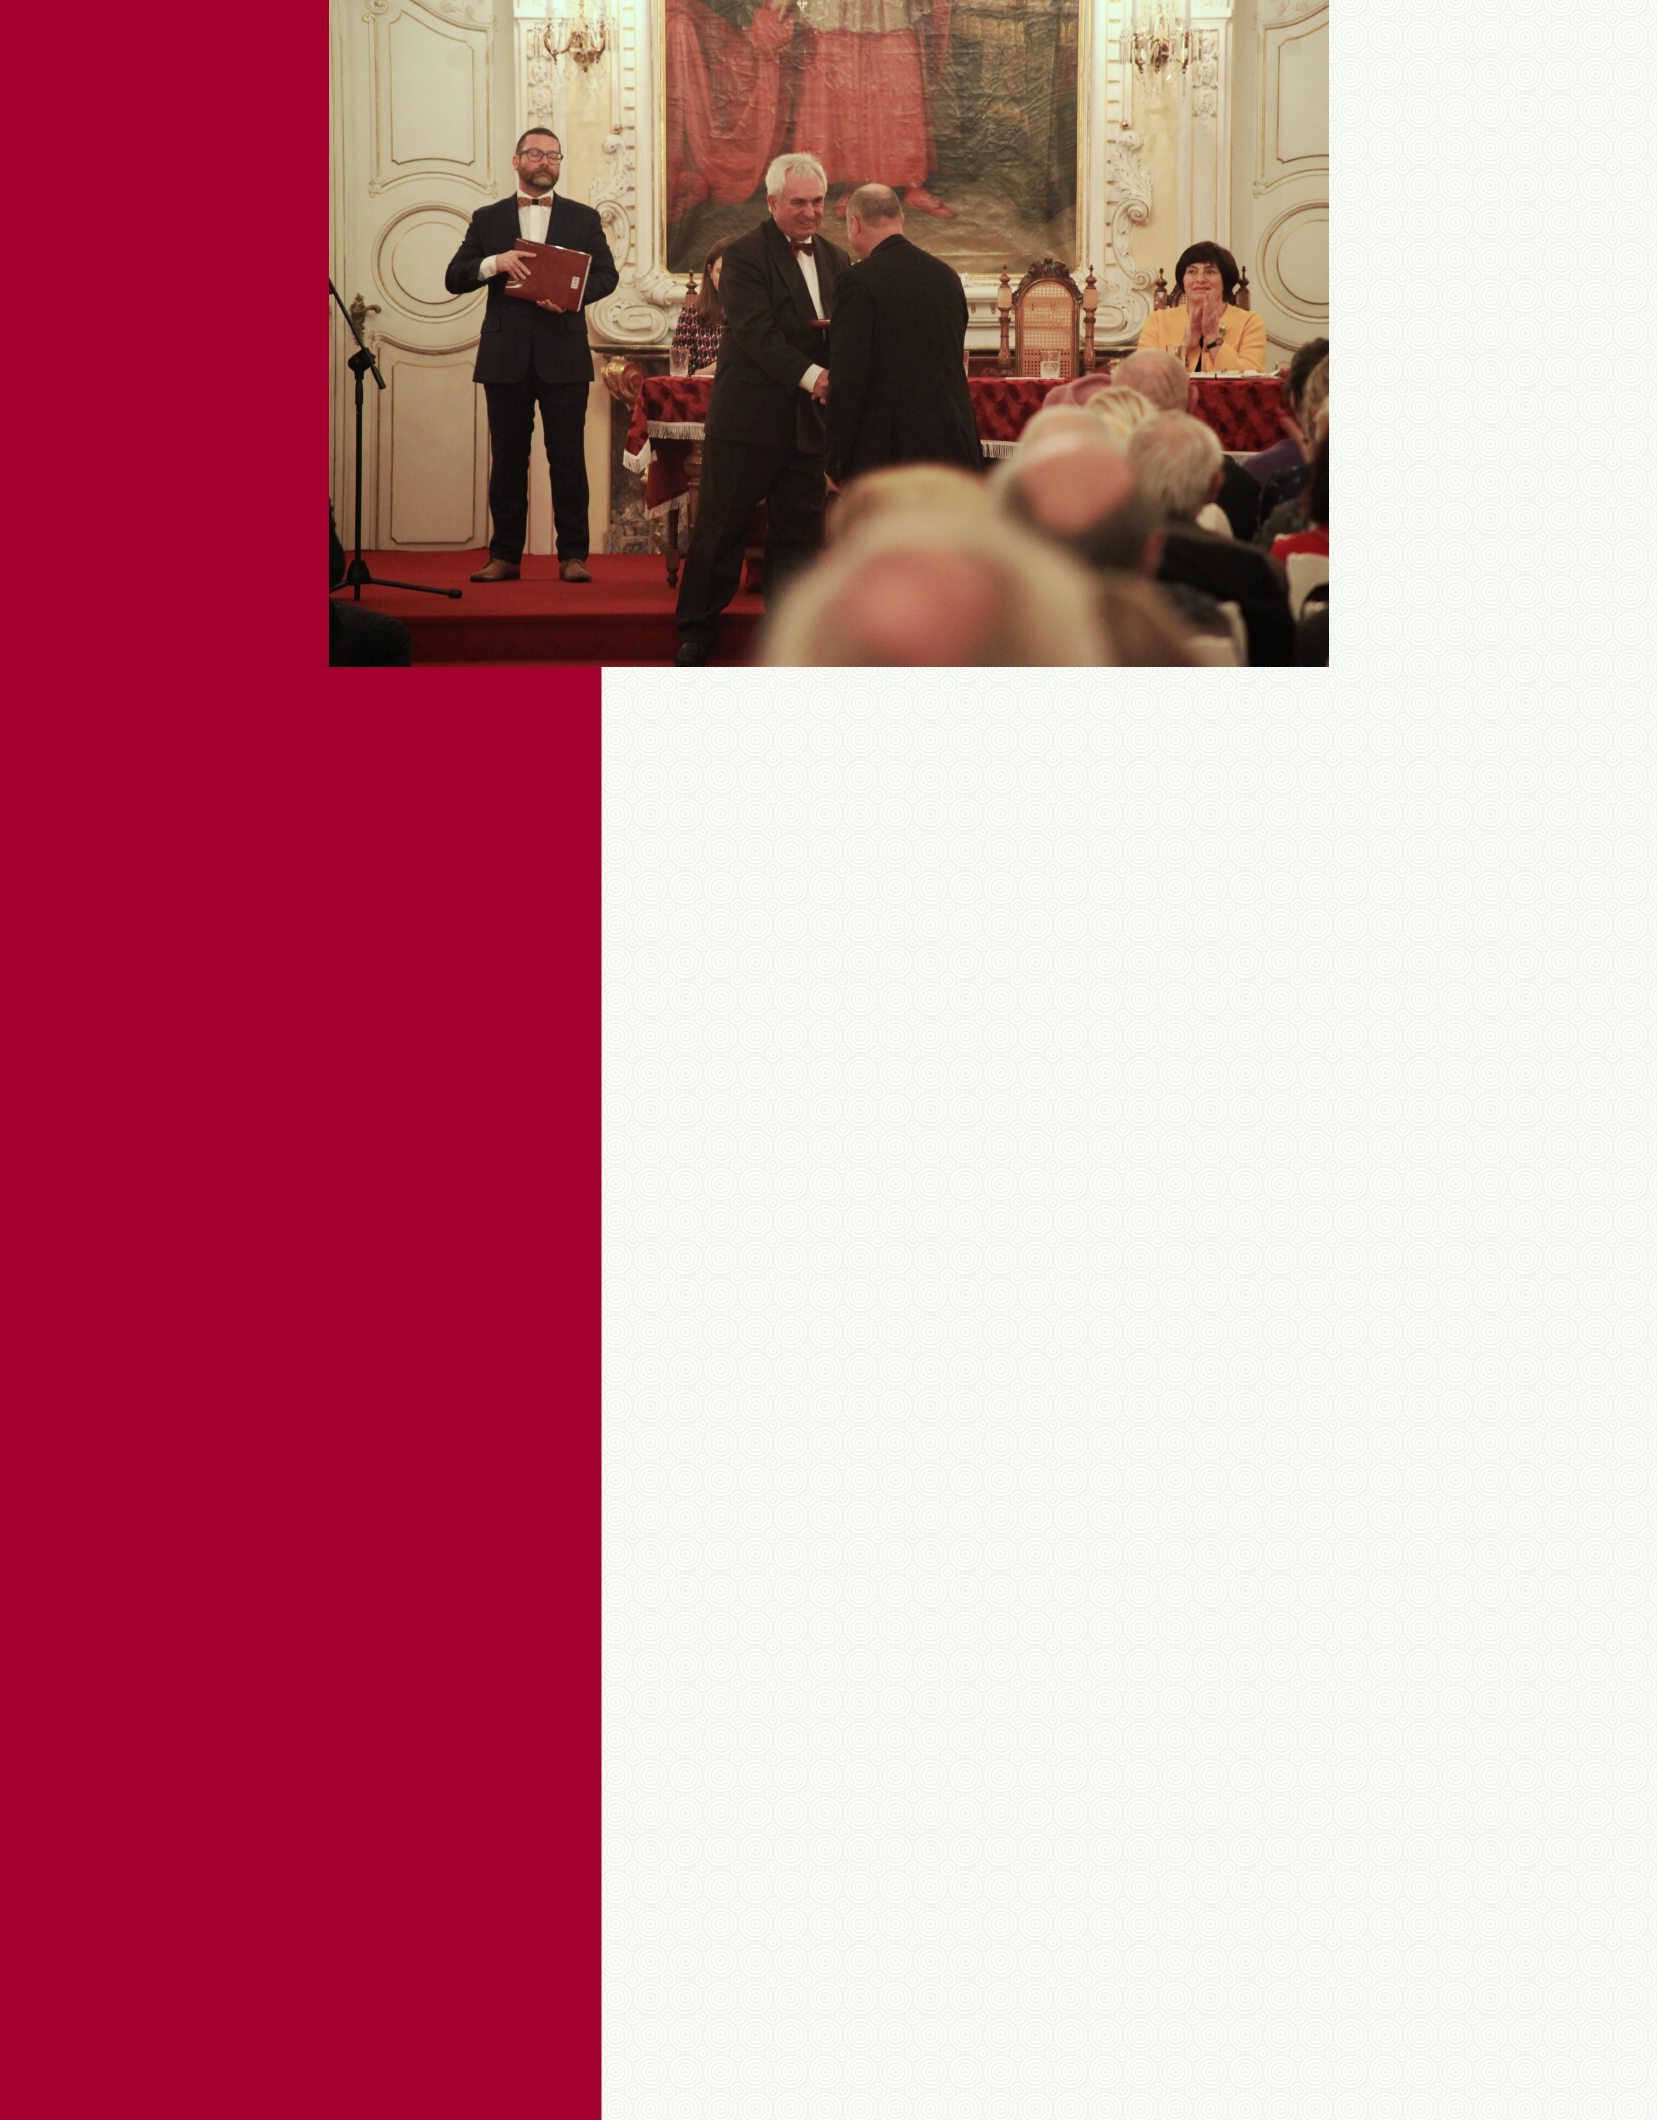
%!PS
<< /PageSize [1657 2120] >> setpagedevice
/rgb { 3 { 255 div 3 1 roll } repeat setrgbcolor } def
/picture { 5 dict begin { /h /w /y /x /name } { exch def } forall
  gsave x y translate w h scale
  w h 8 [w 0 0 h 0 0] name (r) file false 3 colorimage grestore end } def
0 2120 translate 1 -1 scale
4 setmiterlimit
162 1 45 rgb
0 0 1657 2120 rectfill
(img/1.rgb) 601 0 1056 2120 picture
(img/2.rgb) 329 0 1000 667 picture
showpage
